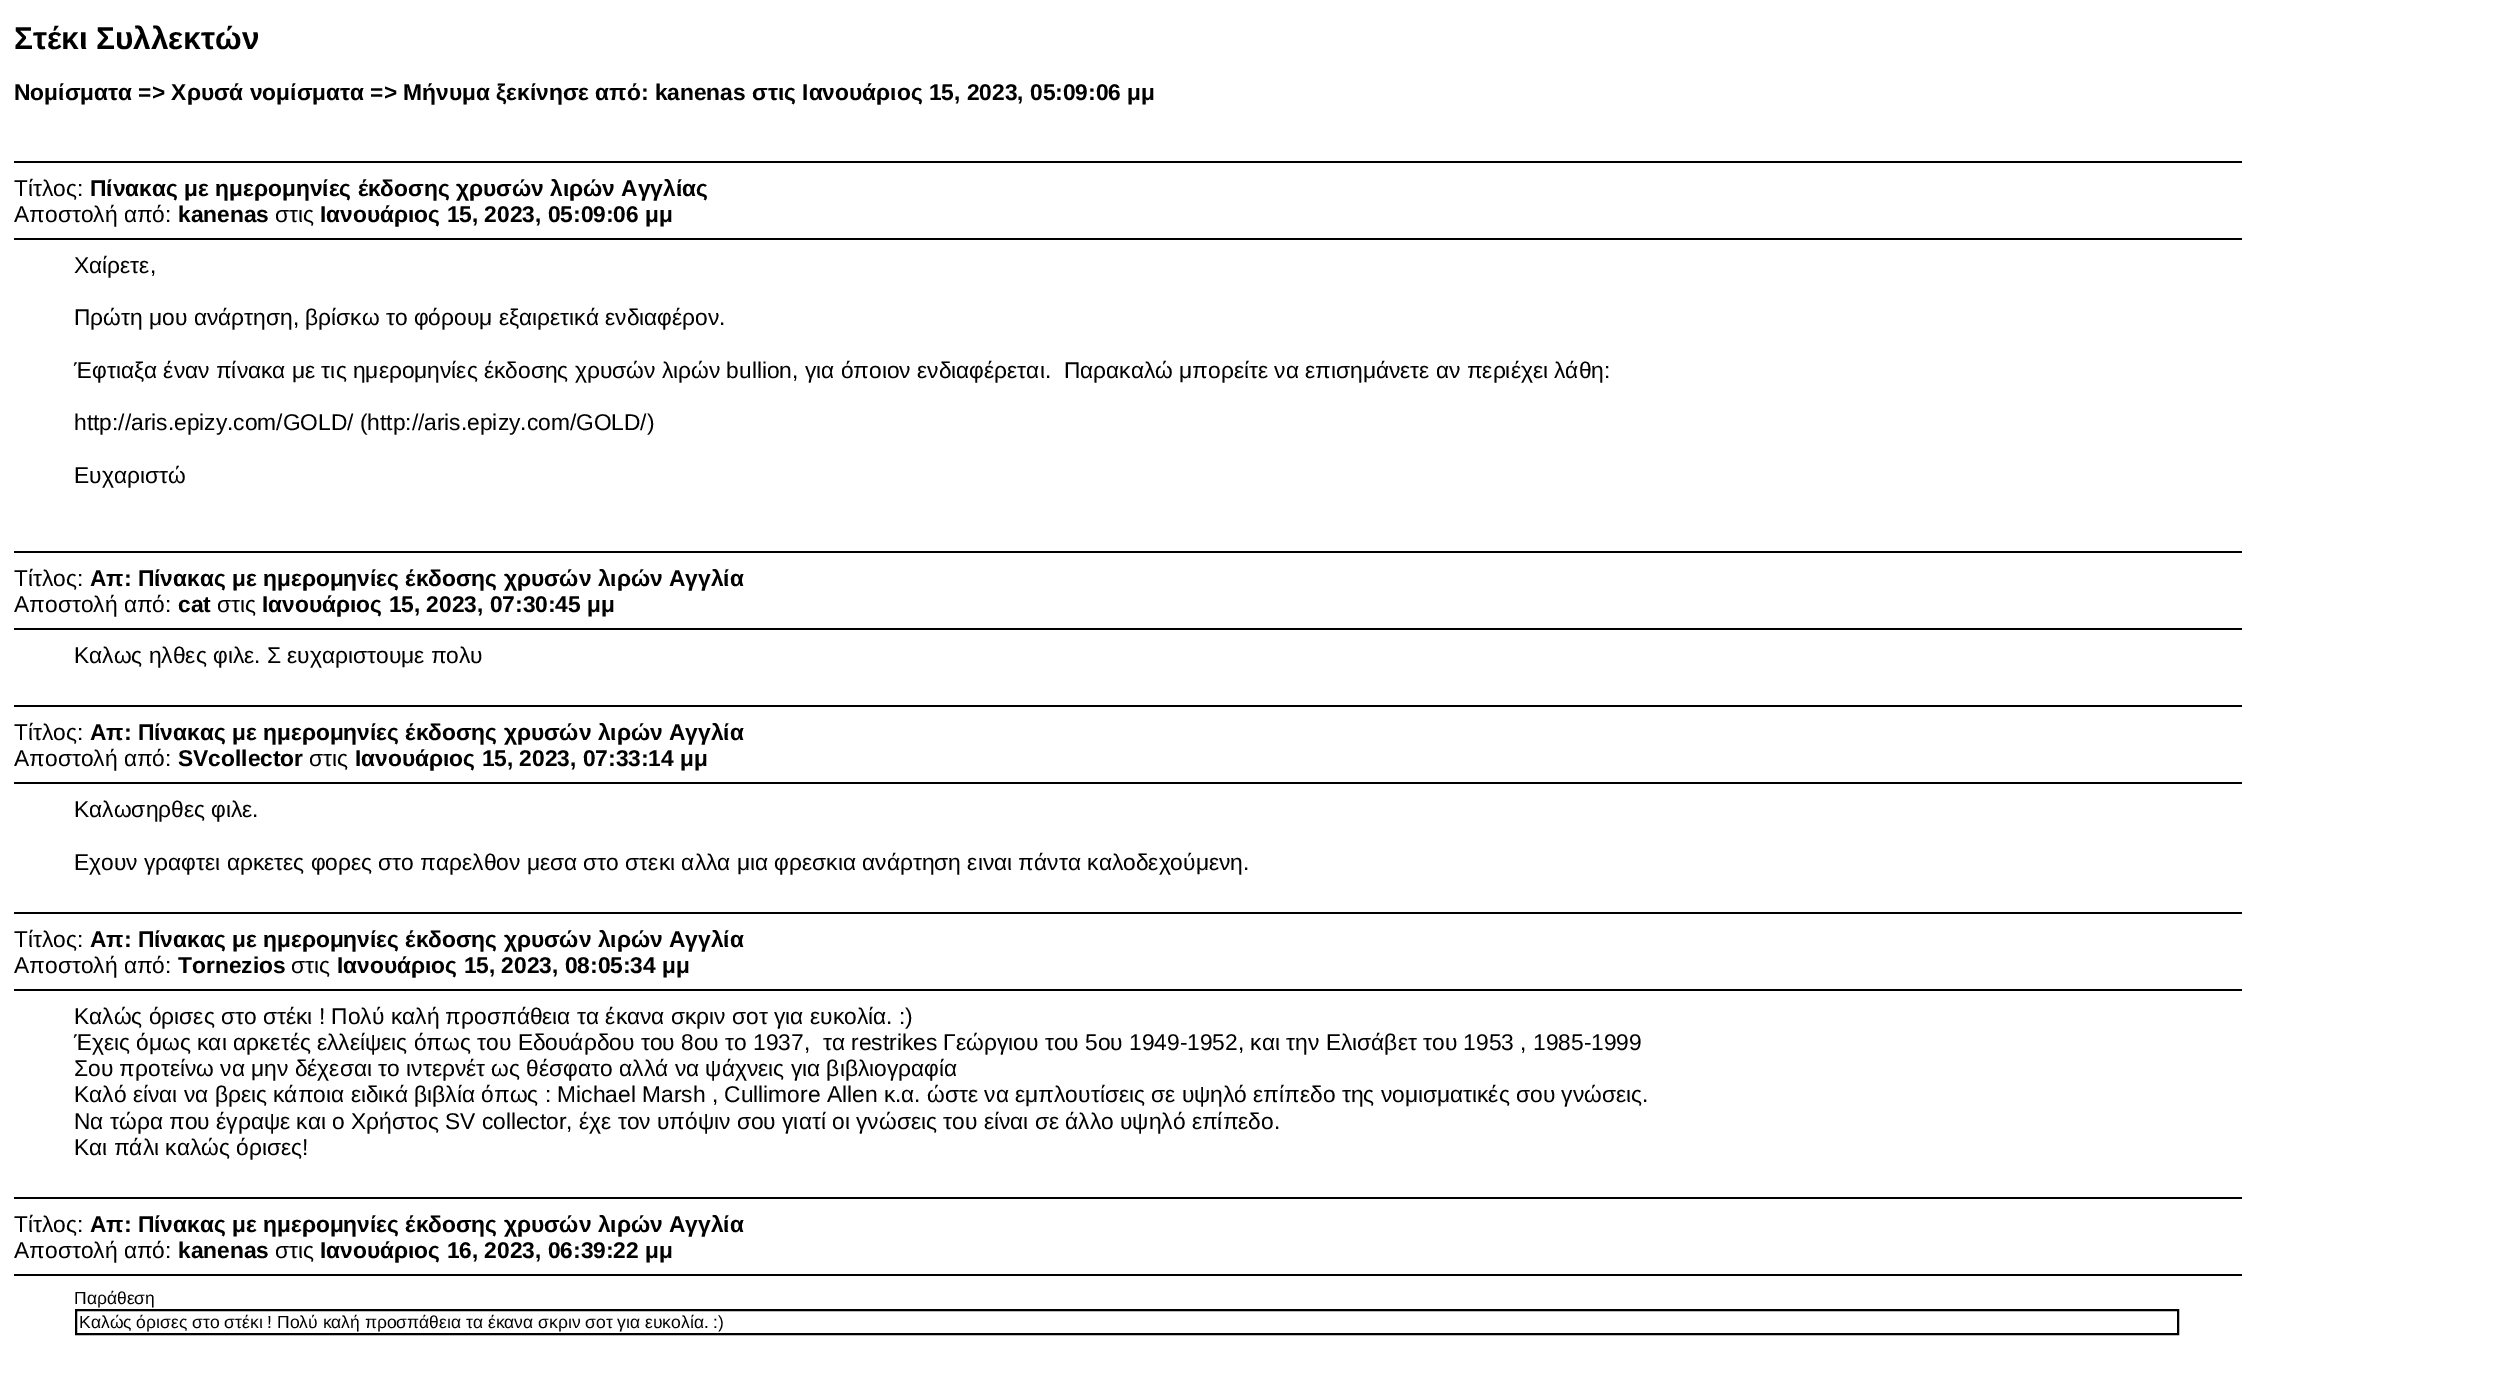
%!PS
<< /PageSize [2501 1373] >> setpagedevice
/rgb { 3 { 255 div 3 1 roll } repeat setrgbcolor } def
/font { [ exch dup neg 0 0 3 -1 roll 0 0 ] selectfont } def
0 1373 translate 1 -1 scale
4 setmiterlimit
255 255 255 rgb
0 0 2501 1373 rectfill
[
  [14 161 2228 2 0 0 0]
  [14 238 2228 2 0 0 0]
  [14 551 2228 2 0 0 0]
  [14 628 2228 2 0 0 0]
  [14 705 2228 2 0 0 0]
  [14 782 2228 2 0 0 0]
  [14 912 2228 2 0 0 0]
  [14 989 2228 2 0 0 0]
  [14 1197 2228 2 0 0 0]
  [14 1274 2228 2 0 0 0]
] { aload pop rgb rectfill } forall
2 setlinewidth
76 1310 2102 24 rectstroke
/LiberationSans-Bold 31.5 font
14 49 moveto (Στέκι Συλλεκτών) show
/LiberationSans-Bold 22.75 font
14 100 moveto (Νομίσματα => Χρυσά νομίσματα => Μήνυμα ξεκίνησε από: kanenas στις Ιανουάριος 15, 2023, 05:09:06 μμ) show
/LiberationSans-Regular 22.75 font
14 196 moveto (Τίτλος:) show
/LiberationSans-Bold 22.75 font
90 196 moveto (Πίνακας με ημερομηνίες έκδοσης χρυσών λιρών Αγγλίας) show
/LiberationSans-Regular 22.75 font
14 222 moveto (Αποστολή από:) show
/LiberationSans-Bold 22.75 font
178 222 moveto (kanenas) show
/LiberationSans-Regular 22.75 font
275 222 moveto (στις) show
/LiberationSans-Bold 22.75 font
320 222 moveto (Ιανουάριος 15, 2023, 05:09:06 μμ) show
/LiberationSans-Regular 22.75 font
[
  [(Χαίρετε,) 74 273]
  [(Πρώτη μου ανάρτηση, βρίσκω το φόρουμ εξαιρετικά ενδιαφέρον.) 74 325]
  [(Έφτιαξα έναν πίνακα με τις ημερομηνίες έκδοσης χρυσών λιρών bullion, για όποιον ενδιαφέρεται.  Παρακαλώ μπορείτε να επισημάνετε αν περιέχει λάθη:) 74 378]
  [(http://aris.epizy.com/GOLD/ \(http://aris.epizy.com/GOLD/\)) 74 430]
  [(Ευχαριστώ) 74 483]
  [(Τίτλος:) 14 586]
] { aload pop moveto show } forall
/LiberationSans-Bold 22.75 font
90 586 moveto (Απ: Πίνακας με ημερομηνίες έκδοσης χρυσών λιρών Αγγλία) show
/LiberationSans-Regular 22.75 font
14 612 moveto (Αποστολή από:) show
/LiberationSans-Bold 22.75 font
178 612 moveto (cat) show
/LiberationSans-Regular 22.75 font
217 612 moveto (στις) show
/LiberationSans-Bold 22.75 font
262 612 moveto (Ιανουάριος 15, 2023, 07:30:45 μμ) show
/LiberationSans-Regular 22.75 font
74 663 moveto (Καλως ηλθες φιλε. Σ ευχαριστουμε πολυ) show
14 740 moveto (Τίτλος:) show
/LiberationSans-Bold 22.75 font
90 740 moveto (Απ: Πίνακας με ημερομηνίες έκδοσης χρυσών λιρών Αγγλία) show
/LiberationSans-Regular 22.75 font
14 766 moveto (Αποστολή από:) show
/LiberationSans-Bold 22.75 font
178 766 moveto (SVcollector) show
/LiberationSans-Regular 22.75 font
309 766 moveto (στις) show
/LiberationSans-Bold 22.75 font
355 766 moveto (Ιανουάριος 15, 2023, 07:33:14 μμ) show
/LiberationSans-Regular 22.75 font
[
  [(Καλωσηρθες φιλε.) 74 817]
  [(Εχουν γραφτει αρκετες φορες στο παρελθον μεσα στο στεκι αλλα μια φρεσκια ανάρτηση ειναι πάντα καλοδεχούμενη.) 74 870]
  [(Τίτλος:) 14 947]
] { aload pop moveto show } forall
/LiberationSans-Bold 22.75 font
90 947 moveto (Απ: Πίνακας με ημερομηνίες έκδοσης χρυσών λιρών Αγγλία) show
/LiberationSans-Regular 22.75 font
14 973 moveto (Αποστολή από:) show
/LiberationSans-Bold 22.75 font
178 973 moveto (Tornezios) show
/LiberationSans-Regular 22.75 font
291 973 moveto (στις) show
/LiberationSans-Bold 22.75 font
337 973 moveto (Ιανουάριος 15, 2023, 08:05:34 μμ) show
/LiberationSans-Regular 22.75 font
[
  [(Καλώς όρισες στο στέκι ! Πολύ καλή προσπάθεια τα έκανα σκριν σοτ για ευκολία. :\)) 74 1024]
  [(Έχεις όμως και αρκετές ελλείψεις όπως του Εδουάρδου του 8ου το 1937,  τα restrikes Γεώργιου του 5ου 1949-1952, και την Ελισάβετ του 1953 , 1985-1999) 74 1050]
  [(Σου προτείνω να μην δέχεσαι το ιντερνέτ ως θέσφατο αλλά να ψάχνεις για βιβλιογραφία) 74 1076]
  [(Καλό είναι να βρεις κάποια ειδικά βιβλία όπως : Michael Marsh , Cullimore Allen κ.α. ώστε να εμπλουτίσεις σε υψηλό επίπεδο της νομισματικές σου γνώσεις.) 74 1102]
  [(Να τώρα που έγραψε και ο Χρήστος SV collector, έχε τον υπόψιν σου γιατί οι γνώσεις του είναι σε άλλο υψηλό επίπεδο.) 74 1129]
  [(Και πάλι καλώς όρισες!) 74 1155]
  [(Τίτλος:) 14 1232]
] { aload pop moveto show } forall
/LiberationSans-Bold 22.75 font
90 1232 moveto (Απ: Πίνακας με ημερομηνίες έκδοσης χρυσών λιρών Αγγλία) show
/LiberationSans-Regular 22.75 font
14 1258 moveto (Αποστολή από:) show
/LiberationSans-Bold 22.75 font
178 1258 moveto (kanenas) show
/LiberationSans-Regular 22.75 font
275 1258 moveto (στις) show
/LiberationSans-Bold 22.75 font
320 1258 moveto (Ιανουάριος 16, 2023, 06:39:22 μμ) show
/LiberationSans-Regular 17.5 font
74 1304 moveto (Παράθεση) show
79 1328 moveto (Καλώς όρισες στο στέκι ! Πολύ καλή προσπάθεια τα έκανα σκριν σοτ για ευκολία. :\)) show
showpage
